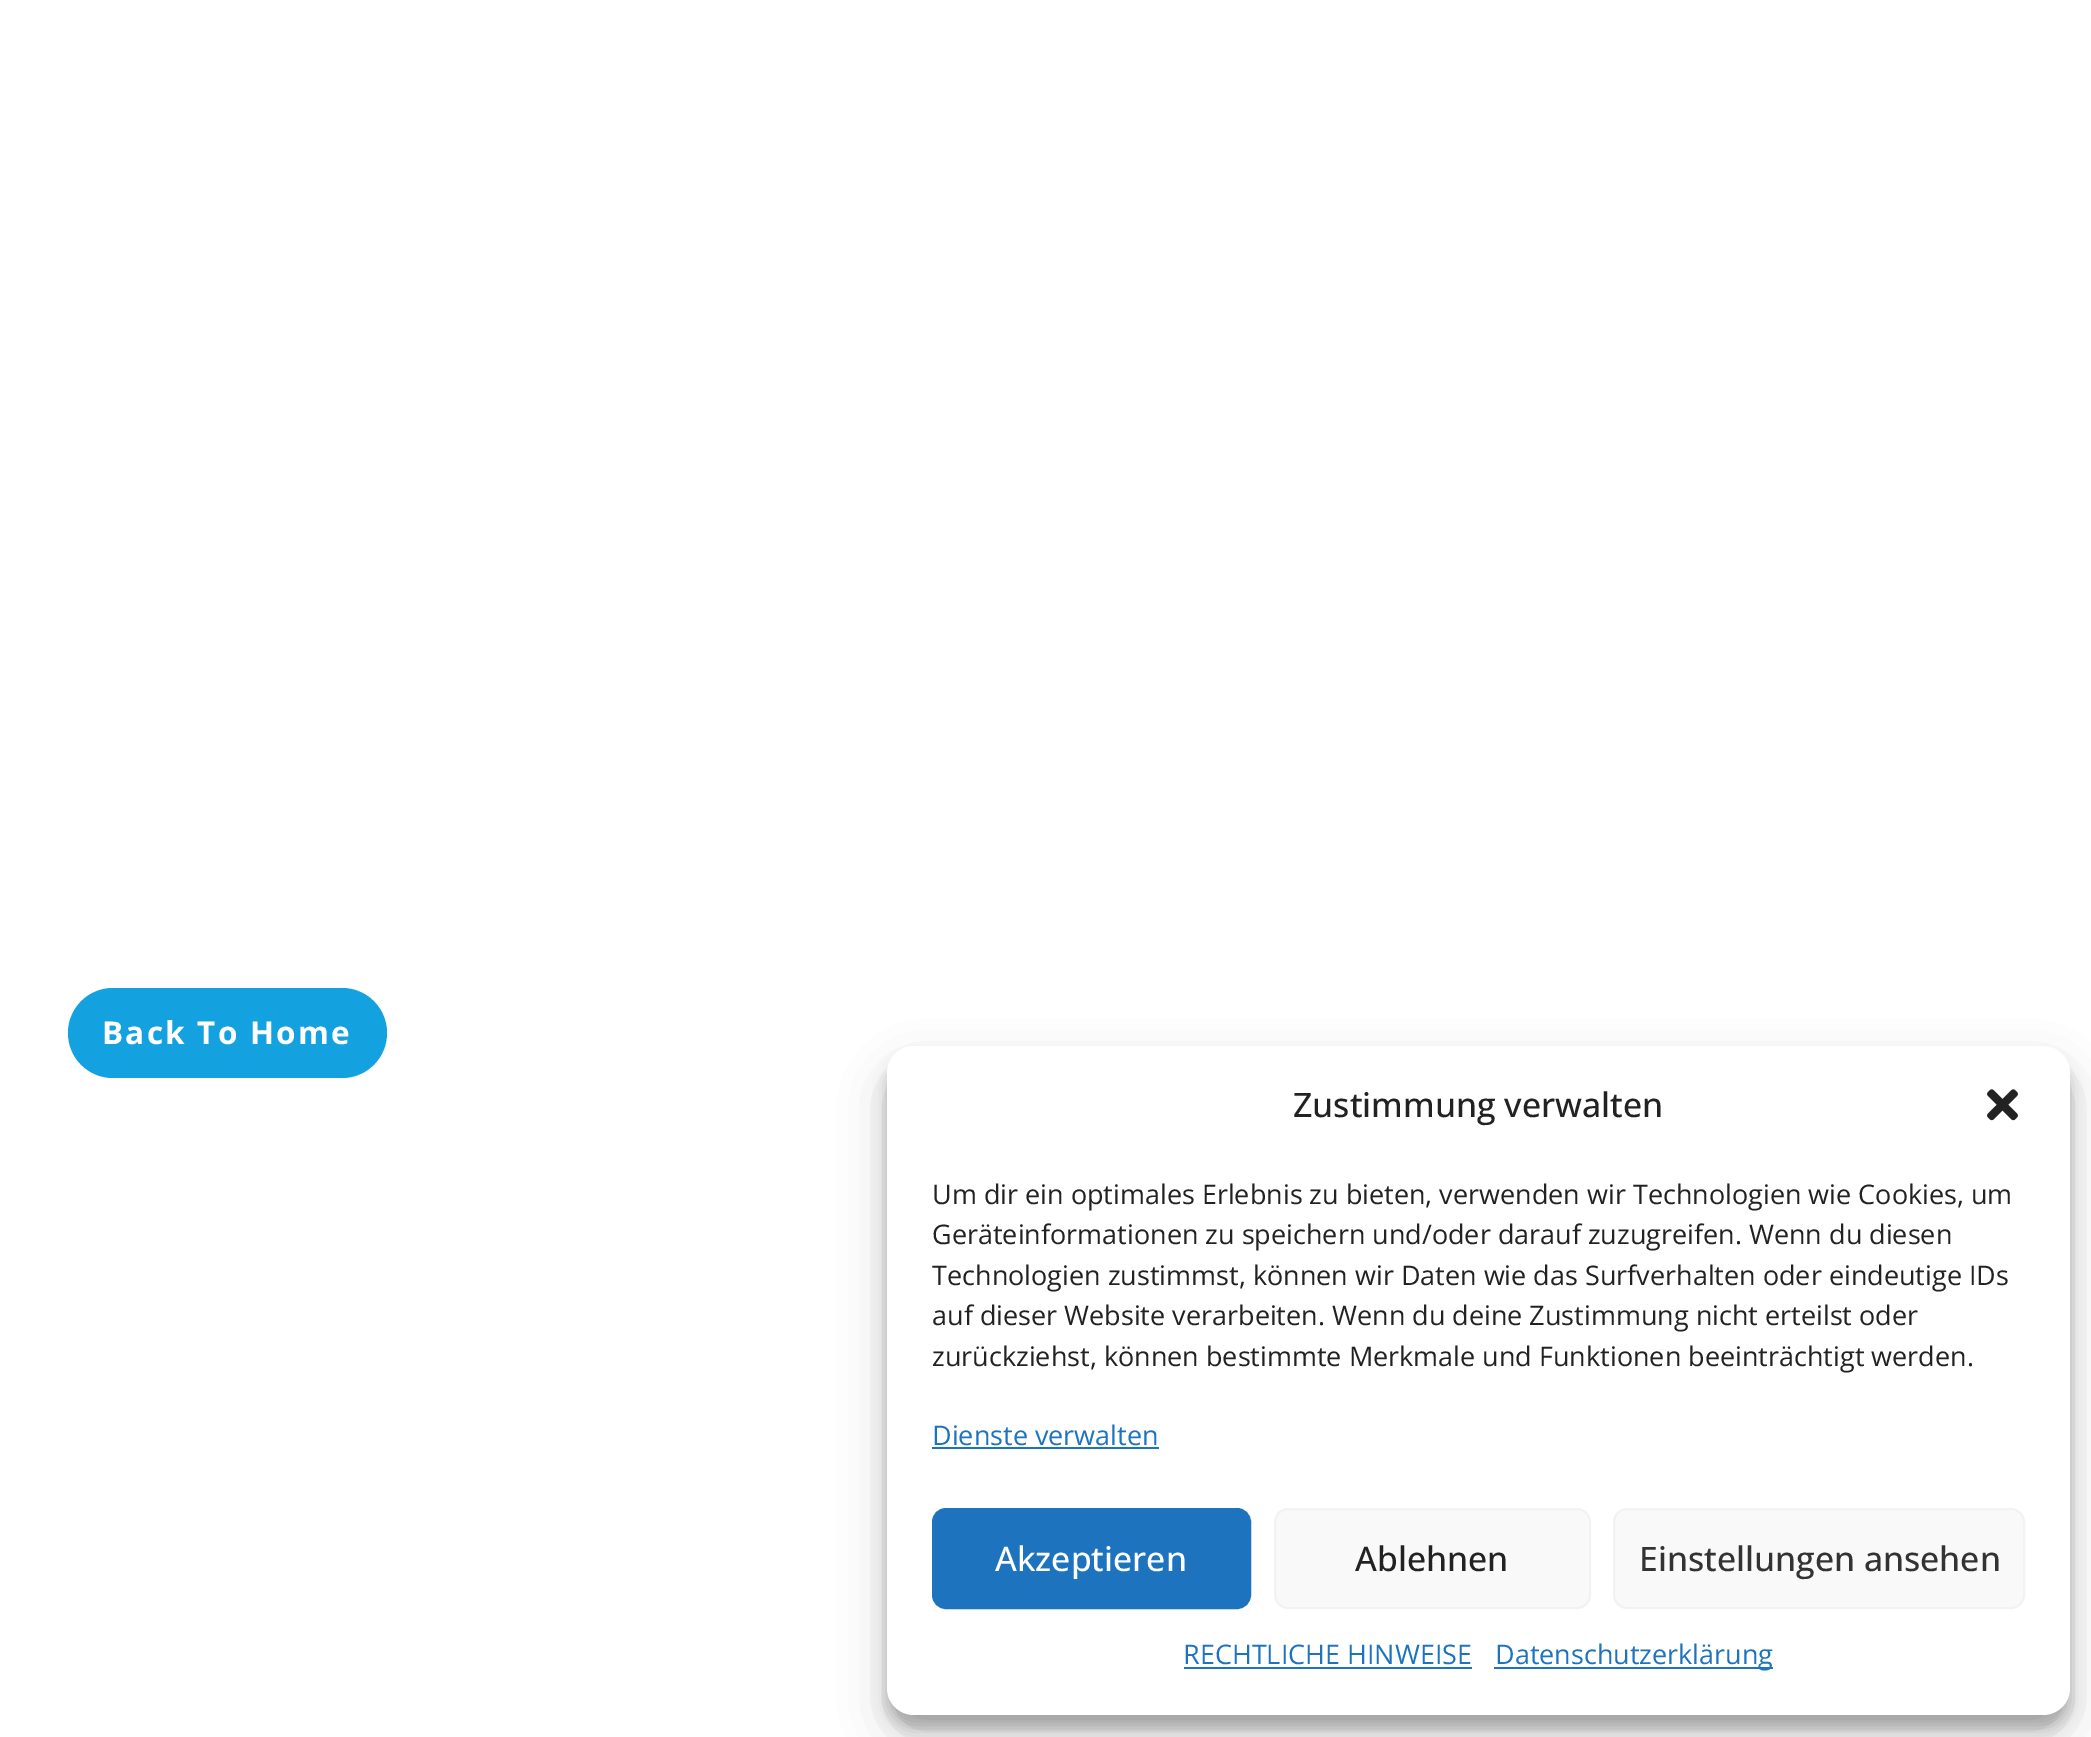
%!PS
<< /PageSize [2091 1737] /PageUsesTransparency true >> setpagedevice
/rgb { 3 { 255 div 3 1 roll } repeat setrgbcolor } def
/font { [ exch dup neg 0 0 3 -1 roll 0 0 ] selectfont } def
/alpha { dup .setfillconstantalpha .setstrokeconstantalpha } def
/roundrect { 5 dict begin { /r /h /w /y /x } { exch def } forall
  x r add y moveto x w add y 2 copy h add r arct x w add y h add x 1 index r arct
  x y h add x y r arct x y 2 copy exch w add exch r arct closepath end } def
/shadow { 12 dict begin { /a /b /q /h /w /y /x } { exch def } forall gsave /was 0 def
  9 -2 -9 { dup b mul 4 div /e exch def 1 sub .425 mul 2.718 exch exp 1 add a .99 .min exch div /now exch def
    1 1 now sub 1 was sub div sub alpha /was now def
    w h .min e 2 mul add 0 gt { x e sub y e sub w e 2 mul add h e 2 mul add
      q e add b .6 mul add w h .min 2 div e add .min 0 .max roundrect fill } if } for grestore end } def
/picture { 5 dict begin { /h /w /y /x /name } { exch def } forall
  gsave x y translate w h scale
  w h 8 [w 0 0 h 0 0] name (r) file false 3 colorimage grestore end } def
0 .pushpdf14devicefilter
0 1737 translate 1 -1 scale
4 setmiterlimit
255 255 255 rgb
0 0 2091 1737 rectfill
20 161 224 rgb
68 988 319 90 45 roundrect fill
0 0 0 rgb
887 1060 1183 668 27 7 0.23 shadow
887 1069 1183 668 27 22.5 0.19 shadow
255 255 255 rgb
887 1046 1183 669 27 roundrect fill
(img/1.rgb) 1987 1089 31 32 picture
30 115 190 rgb
932 1447 227 2 rectfill
933 1509 317 99 13 roundrect gsave fill grestore
2 setlinewidth
stroke
249 249 249 rgb
1275 1509 315 99 13 roundrect gsave fill grestore
242 242 242 rgb
stroke
249 249 249 rgb
1614 1509 410 99 13 roundrect gsave fill grestore
242 242 242 rgb
stroke
30 115 190 rgb
1184 1667 288 2 rectfill
1494 1667 279 2 rectfill
/OpenSans-Bold 31.5 font
255 255 255 rgb
102 1044 moveto 2.25 0 (Back To Home) ashow
/OpenSans-Medium 33.75 font
34 34 34 rgb
1293 1117 moveto (Zustimmung verwalten) show
/OpenSans-Regular 27 font
932 1204 moveto (Um dir ein optimales Erlebnis zu bieten, verwenden wir Technologien wie Cookies, um) show
932 1244 moveto (Geräteinformationen zu speichern und/oder darauf zuzugreifen. Wenn du diesen) show
gsave
932 1175 1093 213 rectclip
932 1285 moveto (Technologien zustimmst, können wir Daten wie das Surfverhalten oder eindeutige IDs) show
grestore
932 1325 moveto (auf dieser Website verarbeiten. Wenn du deine Zustimmung nicht erteilst oder) show
932 1366 moveto (zurückziehst, können bestimmte Merkmale und Funktionen beeinträchtigt werden.) show
30 115 190 rgb
932 1445 moveto (Dienste verwalten) show
/OpenSans-Medium 33.75 font
255 255 255 rgb
995 1571 moveto (Akzeptieren) show
34 34 34 rgb
1355 1571 moveto (Ablehnen) show
51 51 51 rgb
1639 1571 moveto (Einstellungen ansehen) show
/OpenSans-Regular 27 font
30 115 190 rgb
1183 1664 moveto (RECHTLICHE HINWEISE) show
1495 1664 moveto (Datenschutzerklärung) show
.poppdf14devicefilter showpage
